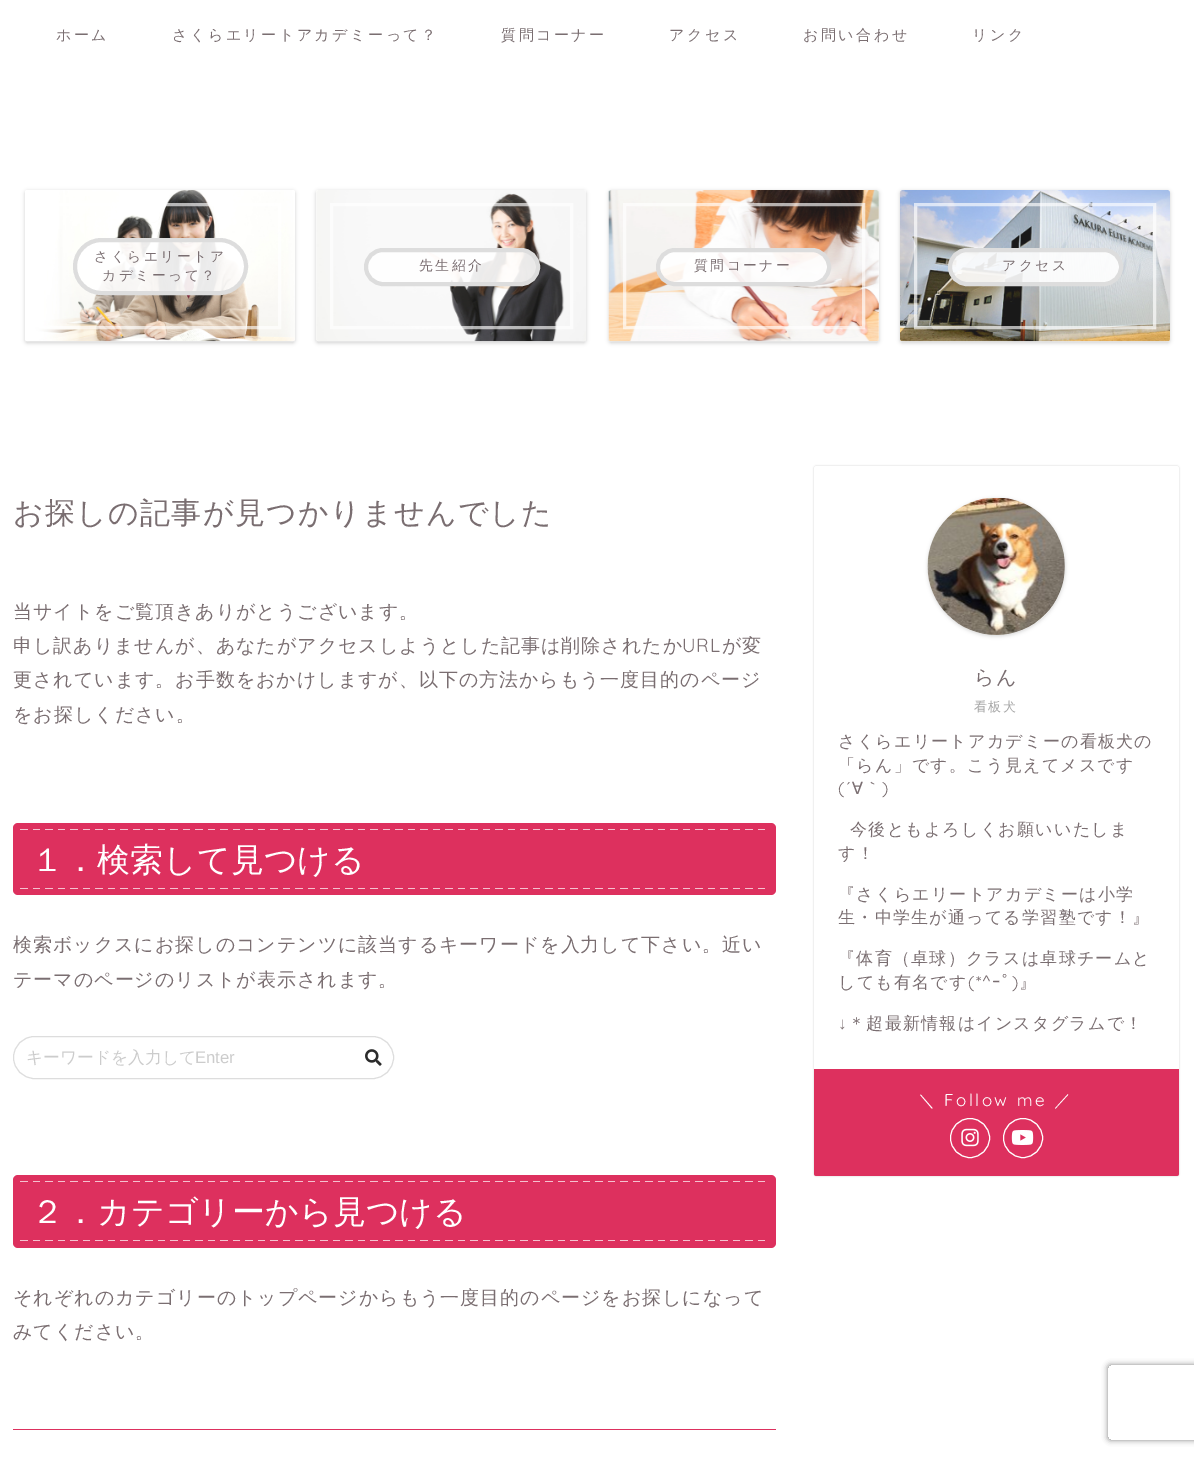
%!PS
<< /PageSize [1194 1457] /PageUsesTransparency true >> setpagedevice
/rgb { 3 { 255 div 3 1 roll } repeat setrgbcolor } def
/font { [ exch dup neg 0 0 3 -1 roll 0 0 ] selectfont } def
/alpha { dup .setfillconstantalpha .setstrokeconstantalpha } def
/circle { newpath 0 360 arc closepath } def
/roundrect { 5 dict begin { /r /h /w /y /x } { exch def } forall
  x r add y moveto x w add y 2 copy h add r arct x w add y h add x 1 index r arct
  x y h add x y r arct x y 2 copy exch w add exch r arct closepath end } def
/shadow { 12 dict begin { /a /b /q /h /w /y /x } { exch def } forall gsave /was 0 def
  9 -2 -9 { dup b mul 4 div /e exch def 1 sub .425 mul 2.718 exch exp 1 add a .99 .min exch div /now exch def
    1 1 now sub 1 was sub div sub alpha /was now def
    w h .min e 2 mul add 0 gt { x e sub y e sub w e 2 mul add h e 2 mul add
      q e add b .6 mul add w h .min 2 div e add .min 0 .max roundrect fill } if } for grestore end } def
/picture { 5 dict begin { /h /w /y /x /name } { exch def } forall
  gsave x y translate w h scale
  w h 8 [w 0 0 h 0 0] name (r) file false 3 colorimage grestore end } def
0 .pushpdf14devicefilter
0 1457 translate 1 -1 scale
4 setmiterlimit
255 255 255 rgb
0 0 1194 1457 rectfill
gsave
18 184 moveto 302 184 lineto 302 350 lineto 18 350 lineto closepath 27.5 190 moveto 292.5 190 lineto 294 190 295 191 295 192.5 curveto 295 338.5 lineto 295 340 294 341 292.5 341 curveto 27.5 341 lineto 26 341 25 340 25 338.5 curveto 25 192.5 lineto 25 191 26 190 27.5 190 curveto closepath eoclip newpath
0 0 0 rgb
25 191 270 152 2.5 2 0.18 shadow
grestore
(img/1.rgb) 25 190 270 152 picture
0.65 alpha
3 setlinewidth
40.5 204.5 239 123 rectstroke
0.9 alpha
75 240 171 53 26.5 roundrect fill
1 alpha
221 221 221 rgb
4 setlinewidth
75 240 171 53 26.5 roundrect stroke
0 0 0 rgb
316 191 270 152 2.5 2 0.18 shadow
255 255 255 rgb
316 190 270 151 2.5 roundrect fill
0.9 alpha
316 190 270 151 2.5 roundrect fill
1 alpha
(img/2.rgb) 316 190 270 152 picture
0.65 alpha
3 setlinewidth
331.5 204.5 240 123 rectstroke
0.9 alpha
366 250 172 34 17 roundrect fill
1 alpha
221 221 221 rgb
4 setlinewidth
366 250 172 34 17 roundrect stroke
0 0 0 rgb
609 191 270 152 2.5 2 0.18 shadow
255 255 255 rgb
609 190 270 151 2.5 roundrect fill
0.9 alpha
609 190 270 151 2.5 roundrect fill
1 alpha
(img/3.rgb) 608 190 271 152 picture
0.65 alpha
3 setlinewidth
624.5 204.5 239 123 rectstroke
0.9 alpha
658 250 171 34 17 roundrect fill
1 alpha
221 221 221 rgb
4 setlinewidth
658 250 171 34 17 roundrect stroke
gsave
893 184 moveto 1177 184 lineto 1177 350 lineto 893 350 lineto closepath 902.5 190 moveto 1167.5 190 lineto 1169 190 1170 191 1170 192.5 curveto 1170 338.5 lineto 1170 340 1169 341 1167.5 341 curveto 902.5 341 lineto 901 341 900 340 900 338.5 curveto 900 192.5 lineto 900 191 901 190 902.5 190 curveto closepath eoclip newpath
0 0 0 rgb
900 191 270 152 2.5 2 0.18 shadow
grestore
(img/4.rgb) 900 190 270 152 picture
0.65 alpha
255 255 255 rgb
3 setlinewidth
915.5 204.5 239 123 rectstroke
0.9 alpha
950 250 171 34 17 roundrect fill
1 alpha
221 221 221 rgb
4 setlinewidth
950 250 171 34 17 roundrect stroke
221 48 94 rgb
13 823 763 72 5 roundrect fill
(img/5.rgb) 20 829 745 1 picture
(img/5.rgb) 20 888 745 1 picture
221 221 221 rgb
1 setlinewidth
13.5 1036.5 380 42 21 roundrect stroke
(img/6.rgb) 365 1049 17 17 picture
221 48 94 rgb
13 1175 763 73 5 roundrect fill
(img/5.rgb) 20 1181 745 1 picture
(img/5.rgb) 20 1240 745 1 picture
13 1429 763 1 rectfill
0 0 0 rgb
814 466 365 710 2.5 1 0.18 shadow
255 255 255 rgb
814 466 365 710 2.5 roundrect fill
0 0 0 rgb
928 499 137 137 68.5 2 0.18 shadow
255 255 255 rgb
996.5 566.5 68.5 circle fill
(img/7.rgb) 927 498 138 137 picture
221 48 94 rgb
814 1069 moveto 1179 1069 lineto 1179 1173.5 lineto 1179 1175 1178 1176 1176.5 1176 curveto 816.5 1176 lineto 815 1176 814 1175 814 1173.5 curveto closepath fill
255 255 255 rgb
970 1138 19.5 circle stroke
(img/8.rgb) 961 1128 18 19 picture
1023 1138 19.5 circle stroke
(img/9.rgb) 1011 1130 23 15 picture
gsave
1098 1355 moveto 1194 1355 lineto 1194 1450 lineto 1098 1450 lineto closepath 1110.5 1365 moveto 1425.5 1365 lineto 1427 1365 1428 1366 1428 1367.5 curveto 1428 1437.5 lineto 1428 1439 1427 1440 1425.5 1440 curveto 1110.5 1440 lineto 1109 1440 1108 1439 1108 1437.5 curveto 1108 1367.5 lineto 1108 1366 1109 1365 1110.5 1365 curveto closepath eoclip newpath
128 128 128 rgb
1108 1365 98 75 2.5 3 1 shadow
grestore
/WenQuanYiZenHei-Medium 15 font
122 110 113 rgb
56 40 moveto 2.5 0 (ホーム) ashow
172 40 moveto 2.5 0 (さくらエリートアカデミーって？) ashow
501 40 moveto 2.5 0 (質問コーナー) ashow
669 40 moveto 2.5 0 (アクセス) ashow
803 40 moveto 2.5 0 (お問い合わせ) ashow
972 40 moveto 2.5 0 (リンク) ashow
/WenQuanYiZenHei-Medium 13.75 font
94 261 moveto 2.5 0 (さくらエリートア) ashow
102 280 moveto 2.5 0 (カデミーって？) ashow
419 270 moveto 2.5 0 (先生紹介) ashow
694 270 moveto 2.5 0 (質問コーナー) ashow
1002 270 moveto 2.5 0 (アクセス) ashow
/WenQuanYiZenHei-Medium 30 font
13 523 moveto 1.25 0 (お探しの記事が見つかりませんでした) ashow
/WenQuanYiZenHei-Medium 19 font
13 618 moveto 0.95 0 (当サイトをご覧頂きありがとうございます。) ashow
13 652 moveto 0.95 0 (申し訳ありませんが、あなたがアクセスしようとした記事は削除されたか) ashow
/Quicksand-Light 19 font
682 652 moveto 0.95 0 (URL) ashow
/WenQuanYiZenHei-Medium 19 font
722 652 moveto 0.95 0 (が変) ashow
13 686 moveto 0.95 0 (更されています。お手数をおかけしますが、以下の方法からもう一度目的のページ) ashow
13 721 moveto 0.95 0 (をお探しください。) ashow
/WenQuanYiZenHei-Medium 33 font
255 255 255 rgb
31 871 moveto (１．検索して見つける) show
/WenQuanYiZenHei-Medium 19 font
122 110 113 rgb
13 951 moveto 0.95 0 (検索ボックスにお探しのコンテンツに該当するキーワードを入力して下さい。近い) ashow
13 986 moveto 0.95 0 (テーマのページのリストが表示されます。) ashow
/WenQuanYiZenHei-Medium 16.75 font
204 204 204 rgb
26 1063 moveto (キーワードを入力して) show
/LiberationSans-Regular 16.75 font
195 1063 moveto (Enter) show
/WenQuanYiZenHei-Medium 33 font
255 255 255 rgb
31 1223 moveto (２．カテゴリーから見つける) show
/WenQuanYiZenHei-Medium 19 font
122 110 113 rgb
13 1304 moveto 0.95 0 (それぞれのカテゴリーのトップページからもう一度目的のページをお探しになって) ashow
13 1338 moveto 0.95 0 (みてください。) ashow
/WenQuanYiZenHei-Medium 20 font
974 684 moveto 1.25 0 (らん) ashow
/WenQuanYiZenHei-Medium 13 font
166 166 166 rgb
974 711 moveto 1.25 0 (看板犬) ashow
/WenQuanYiZenHei-Medium 17 font
122 110 113 rgb
838 747 moveto 1.25 0 (さくらエリートアカデミーの看板犬の) ashow
838 771 moveto 1.25 0 (「らん」です。こう見えてメスです) ashow
/Quicksand-Light 17 font
838 794 moveto 1.25 0 (\(´) ashow
/WenQuanYiZenHei-Medium 17 font
852 794 moveto 1.25 0 (∀｀) ashow
/Quicksand-Light 17 font
882 794 moveto 1.25 0 (\)) ashow
/WenQuanYiZenHei-Medium 17 font
850 835 moveto 1.25 0 (今後ともよろしくお願いいたしま) ashow
838 859 moveto 1.25 0 (す！) ashow
838 900 moveto 1.25 0 (『さくらエリートアカデミーは小学) ashow
838 923 moveto 1.25 0 (生・中学生が通ってる学習塾です！』) ashow
838 964 moveto 1.25 0 (『体育（卓球）クラスは卓球チームと) ashow
838 988 moveto 1.25 0 (しても有名です) ashow
/Quicksand-Light 17 font
968 988 moveto 1.25 0 (\(*^) ashow
/IPAPGothic-Regular 17 font
992 988 moveto 1.25 0 (ｰﾟ) ashow
/Quicksand-Light 17 font
1012 988 moveto 1.25 0 (\)) ashow
/WenQuanYiZenHei-Medium 17 font
1019 988 moveto 1.25 0 (』) ashow
/LiberationSans-Regular 17 font
838 1029 moveto 1.25 0 (↓) ashow
/WenQuanYiZenHei-Medium 17 font
848 1029 moveto 1.25 0 (＊超最新情報はインスタグラムで！) ashow
255 255 255 rgb
918 1106 moveto 2.5 0 (＼) ashow
/Quicksand-Light 17 font
944 1106 moveto 2.5 0 (Follow me) ashow
/WenQuanYiZenHei-Medium 17 font
1054 1106 moveto 2.5 0 (／) ashow
.poppdf14devicefilter showpage
